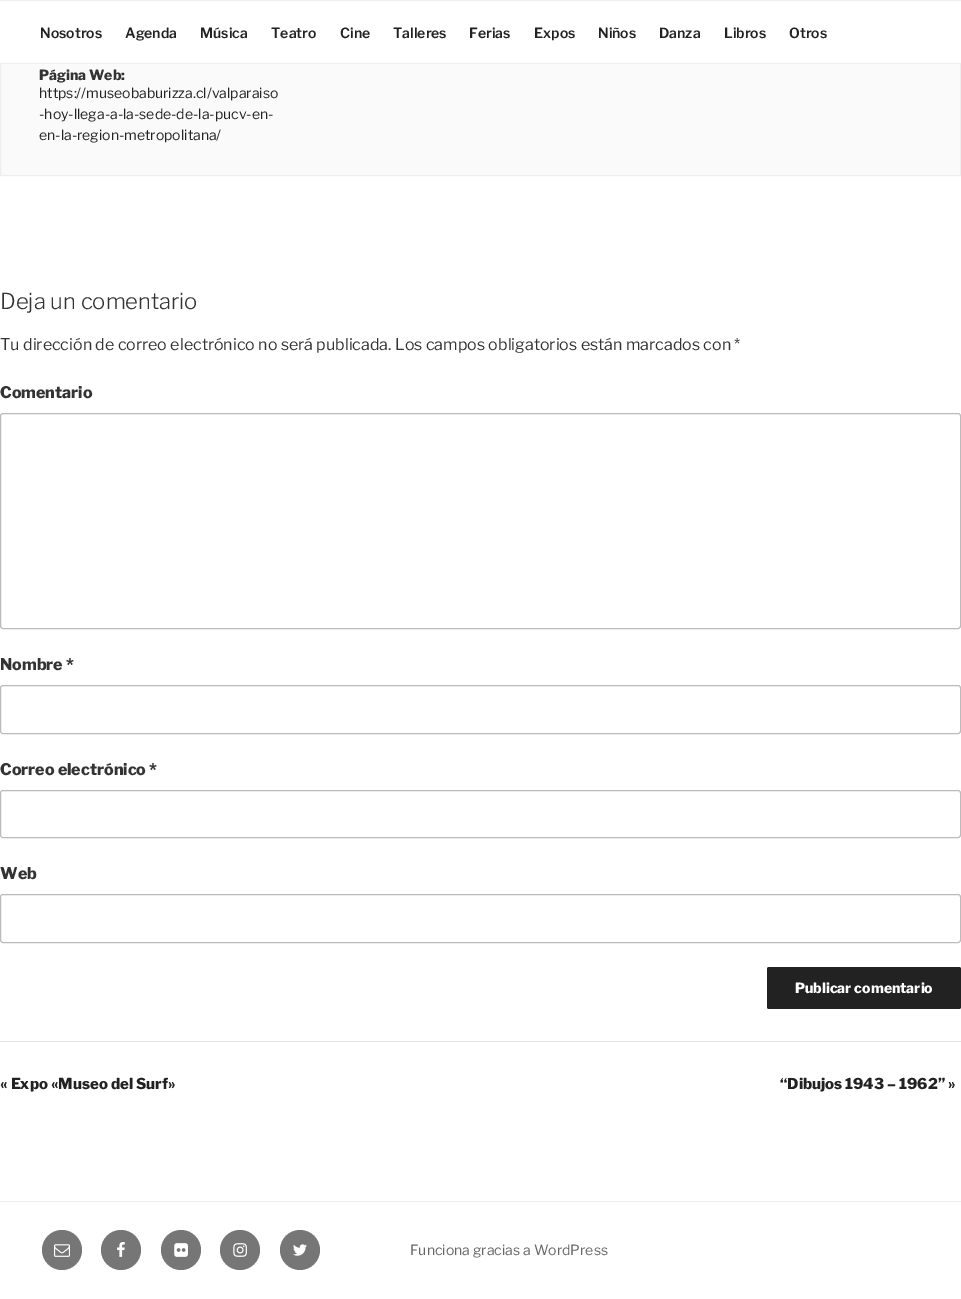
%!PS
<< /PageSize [961 1299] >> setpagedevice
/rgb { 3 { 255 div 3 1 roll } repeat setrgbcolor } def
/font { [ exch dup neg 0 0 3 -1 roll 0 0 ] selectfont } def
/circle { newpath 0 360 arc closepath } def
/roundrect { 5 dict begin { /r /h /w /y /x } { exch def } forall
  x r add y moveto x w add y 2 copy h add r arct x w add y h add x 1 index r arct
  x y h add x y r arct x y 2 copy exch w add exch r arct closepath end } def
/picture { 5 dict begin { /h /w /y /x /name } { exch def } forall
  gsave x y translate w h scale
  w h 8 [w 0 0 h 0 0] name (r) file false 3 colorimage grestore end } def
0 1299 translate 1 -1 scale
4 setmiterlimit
255 255 255 rgb
0 0 961 1299 rectfill
250 250 250 rgb
1 64 959 111 rectfill
238 238 238 rgb
0.5 -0.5 960 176 rectstroke
[
  [0 1 961 62 255 255 255]
  [0 0 961 1 238 238 238]
  [0 63 961 1 238 238 238]
] { aload pop rgb rectfill } forall
187 187 187 rgb
0.5 413.5 960 215 2.5 roundrect stroke
0.5 685.5 960 48 2.5 roundrect stroke
0.5 790.5 960 47 2.5 roundrect stroke
0.5 894.5 960 48 2.5 roundrect stroke
34 34 34 rgb
767 967 194 42 2 roundrect fill
229 229 229 rgb
0 1041 961 1 rectfill
238 238 238 rgb
0 1201 961 1 rectfill
118 118 118 rgb
62 1250 20 circle fill
(img/1.rgb) 54 1244 16 13 picture
121 1250 20 circle fill
(img/2.rgb) 117 1242 8 15 picture
181 1250 20 circle fill
(img/3.rgb) 174 1243 14 14 picture
240 1250 20 circle fill
(img/4.rgb) 233 1243 14 14 picture
300 1250 20 circle fill
(img/5.rgb) 293 1244 14 12 picture
/LibreFranklin-SemiBold 14 font
34 34 34 rgb
[
  [(Nosotros) 40 38]
  [(Agenda) 125 38]
  [(Música) 200 38]
  [(Teatro) 271 38]
  [(Cine) 340 38]
  [(Talleres) 393 38]
  [(Ferias) 469 38]
  [(Expos) 534 38]
  [(Niños) 598 38]
  [(Danza) 659 38]
  [(Libros) 724 38]
  [(Otros) 789 38]
] { aload pop moveto show } forall
/LibreFranklin-ExtraBold 14 font
51 51 51 rgb
39 80 moveto (Página Web:) show
/LibreFranklin-Regular 14 font
34 34 34 rgb
[
  [(https://museobaburizza.cl/valparaiso) 39 98]
  [(-hoy-llega-a-la-sede-de-la-pucv-en-) 39 119]
  [(en-la-region-metropolitana/) 39 140]
] { aload pop moveto show } forall
/LibreFranklin-Light 22 font
51 51 51 rgb
0 309 moveto (Deja un comentario) show
/LibreFranklin-Regular 16 font
0 350 moveto (Tu dirección de correo electrónico no será publicada. Los campos obligatorios están marcados con *) show
/LibreFranklin-ExtraBold 16 font
[
  [(Comentario) 0 398]
  [(Nombre *) 0 670]
  [(Correo electrónico *) 0 775]
  [(Web) 0 879]
] { aload pop moveto show } forall
/LibreFranklin-ExtraBold 14 font
255 255 255 rgb
795 993 moveto (Publicar comentario) show
/LibreFranklin-ExtraBold 15 font
34 34 34 rgb
0 1089 moveto (« Expo «Museo del Surf») show
780 1089 moveto (“Dibujos 1943 – 1962” ») show
/LibreFranklin-Regular 14 font
102 102 102 rgb
410 1255 moveto (Funciona gracias a WordPress) show
showpage
